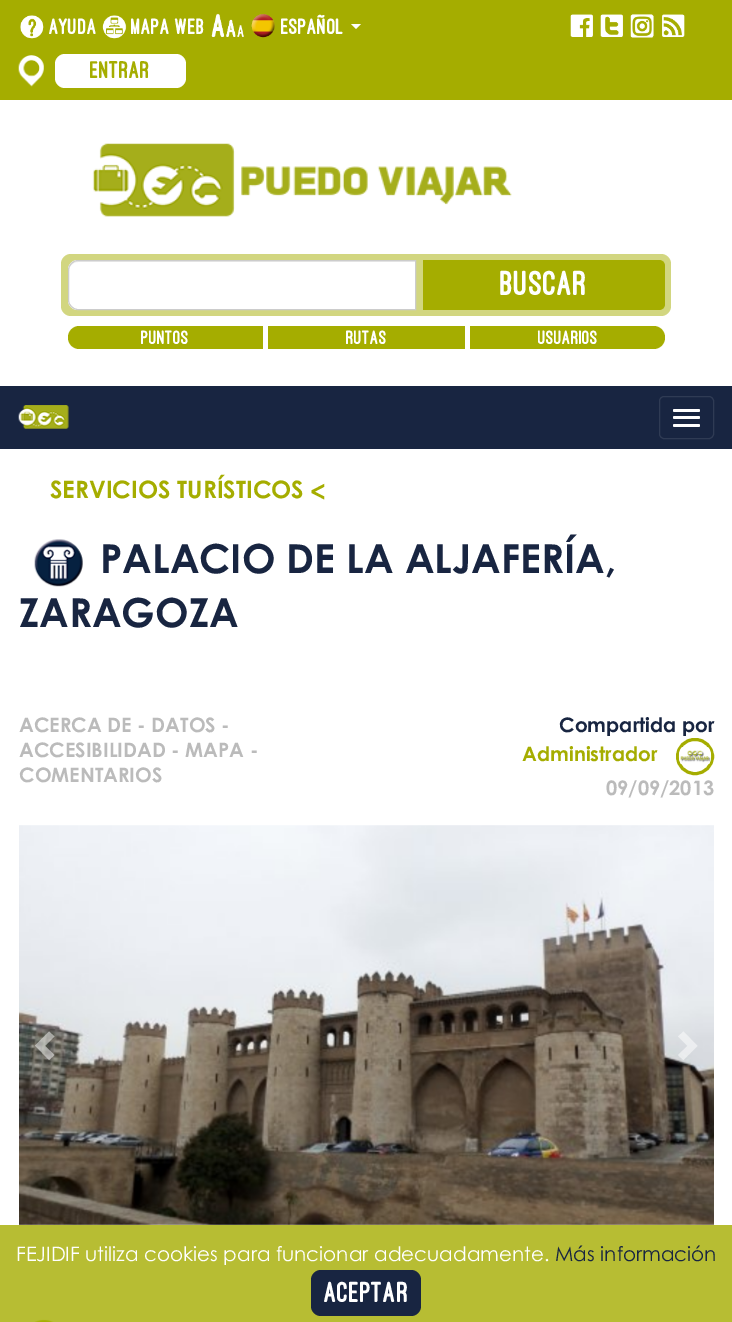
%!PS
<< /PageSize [732 1322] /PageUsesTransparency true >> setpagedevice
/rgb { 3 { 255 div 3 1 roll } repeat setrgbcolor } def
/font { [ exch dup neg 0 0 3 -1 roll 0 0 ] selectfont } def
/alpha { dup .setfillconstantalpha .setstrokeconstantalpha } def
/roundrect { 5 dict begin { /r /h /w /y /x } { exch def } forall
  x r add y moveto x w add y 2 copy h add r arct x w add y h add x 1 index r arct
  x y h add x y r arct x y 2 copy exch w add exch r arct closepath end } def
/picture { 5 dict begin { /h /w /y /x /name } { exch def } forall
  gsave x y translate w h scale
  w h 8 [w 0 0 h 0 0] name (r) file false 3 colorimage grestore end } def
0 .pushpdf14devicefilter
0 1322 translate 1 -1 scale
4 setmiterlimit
255 255 255 rgb
0 0 732 1322 rectfill
183 189 51 rgb
0 1225 732 97 rectfill
165 173 0 rgb
0 0 732 100 rectfill
(img/1.rgb) 20 15 24 24 picture
(img/2.rgb) 102 15 25 24 picture
(img/3.rgb) 211 13 33 24 picture
(img/4.rgb) 251 14 24 24 picture
255 255 255 rgb
351 24 moveto 361 24 lineto 356 29 lineto closepath fill
(img/5.rgb) 570 14 23 23 picture
(img/6.rgb) 600 14 23 23 picture
(img/7.rgb) 630 14 24 24 picture
(img/8.rgb) 662 14 23 23 picture
(img/9.rgb) 18 55 26 32 picture
55 54 131 34 10 roundrect fill
(img/10.rgb) 92 143 420 74 picture
210 214 128 rgb
61 254 610 62 10 roundrect fill
255 255 255 rgb
78 260 moveto 416 260 lineto 416 310 lineto 78 310 lineto 72.5 310 68 305.5 68 300 curveto 68 270 lineto 68 264.5 72.5 260 78 260 curveto closepath fill
236 236 236 rgb
78 262 moveto 415 262 lineto 415 261 lineto 78 261 lineto 72 261 69 266 69 271 curveto 69 266 73 262 78 262 curveto closepath fill
204 204 204 rgb
78 260.5 moveto 415.5 260.5 lineto 415.5 309.5 lineto 78 309.5 lineto 73 309.5 68.5 305 68.5 300 curveto 68.5 270 lineto 68.5 265 73 260.5 78 260.5 curveto closepath stroke
165 173 0 rgb
423 260 moveto 659 260 lineto 662.5 260 665 262.5 665 266 curveto 665 304 lineto 665 307.5 662.5 310 659 310 curveto 423 310 lineto closepath fill
79.5 326 moveto 263 326 lineto 263 349 lineto 79.5 349 lineto 73 349 68 344 68 337.5 curveto 68 331 73 326 79.5 326 curveto closepath fill
268 326 197 23 rectfill
470 326 moveto 653.5 326 lineto 660 326 665 331 665 337.5 curveto 665 344 660 349 653.5 349 curveto 470 349 lineto closepath fill
24 37 65 rgb
0 386 732 63 rectfill
(img/11.rgb) 18 405 51 24 picture
47 59 84 rgb
659.5 396.5 54 42 4.5 roundrect stroke
255 255 255 rgb
673 409 27 3 1.5 roundrect fill
673 416 27 3 1.5 roundrect fill
673 424 27 3 1.5 roundrect fill
(img/12.rgb) 34 539 49 48 picture
165 173 0 rgb
3 setlinewidth
677.5 739.5 35 34 17 roundrect stroke
(img/13.rgb) 678 747 34 17 picture
(img/14.rgb) 19 825 695 400 picture
0.5 alpha
255 255 255 rgb
54.5 1036.5 moveto 45 1046 lineto 54.5 1055 lineto 49 1060 lineto 35 1045.5 lineto 49 1031.5 lineto closepath fill
697.5 1046 moveto 683.5 1060 lineto 678 1055 lineto 687.5 1046 lineto 678 1036.5 lineto 683.5 1031.5 lineto closepath fill
1 alpha
(img/15.rgb) 34 1319 20 3 picture
24 37 65 rgb
311 1270 110 46 10 roundrect fill
/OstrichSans-Black 23 font
255 255 255 rgb
[
  [(Ayuda) 49 34]
  [(Mapa web) 131 34]
  [(Español) 281 34]
] { aload pop moveto show } forall
/OstrichSans-Black 25 font
165 173 0 rgb
90 78 moveto (Entrar) show
/OstrichSans-Black 36 font
255 255 255 rgb
500 295 moveto (Buscar) show
/OstrichSans-Black 20 font
[
  [(Puntos) 141 344]
  [(Rutas) 346 344]
  [(Usuarios) 538 344]
] { aload pop moveto show } forall
/CenturyGothic-Bold 24 font
165 173 0 rgb
50 498 moveto (SERVICIOS TURÍSTICOS) show
/CenturyGothic-Bold 26 font
310 501 moveto (<) show
/CenturyGothic-Bold 40 font
24 37 65 rgb
100 573 moveto (PALACIO DE LA ALJAFERÍA,) show
19 627 moveto (ZARAGOZA) show
/CenturyGothic-Bold 20 font
187 187 187 rgb
[
  [(ACERCA DE - DATOS -) 19 732]
  [(ACCESIBILIDAD - MAPA -) 19 757]
  [(COMENTARIOS) 19 782]
] { aload pop moveto show } forall
24 37 65 rgb
559 732 moveto (Compartida por) show
165 173 0 rgb
522 761 moveto (Administrador) show
187 187 187 rgb
606 795 moveto (09/09/2013) show
/CenturyGothic-Regular 20 font
255 255 255 rgb
16 1261 moveto (FEJIDIF utiliza cookies para funcionar adecuadamente.) show
24 37 65 rgb
555 1261 moveto (Más información) show
/OstrichSans-Black 30 font
255 255 255 rgb
324 1302 moveto (Aceptar) show
.poppdf14devicefilter showpage
